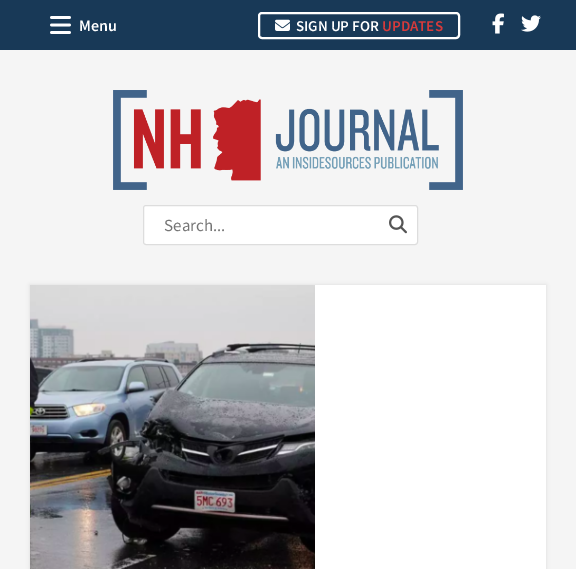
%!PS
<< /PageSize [576 569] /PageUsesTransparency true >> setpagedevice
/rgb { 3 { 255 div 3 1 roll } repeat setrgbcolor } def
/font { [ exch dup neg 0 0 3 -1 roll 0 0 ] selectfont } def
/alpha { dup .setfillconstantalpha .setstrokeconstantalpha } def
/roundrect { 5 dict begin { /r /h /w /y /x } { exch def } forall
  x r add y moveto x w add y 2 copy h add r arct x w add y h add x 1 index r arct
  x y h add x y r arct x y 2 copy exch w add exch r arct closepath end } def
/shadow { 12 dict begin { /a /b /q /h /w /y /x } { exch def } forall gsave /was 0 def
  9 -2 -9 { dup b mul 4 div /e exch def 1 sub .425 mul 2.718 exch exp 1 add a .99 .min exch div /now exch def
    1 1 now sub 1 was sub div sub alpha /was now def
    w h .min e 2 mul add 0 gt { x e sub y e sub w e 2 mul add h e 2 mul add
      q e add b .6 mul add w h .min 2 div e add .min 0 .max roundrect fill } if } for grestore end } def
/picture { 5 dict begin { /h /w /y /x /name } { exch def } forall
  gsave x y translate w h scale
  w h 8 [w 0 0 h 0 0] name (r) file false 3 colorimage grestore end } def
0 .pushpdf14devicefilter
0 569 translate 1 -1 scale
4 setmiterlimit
245 245 245 rgb
0 0 576 569 rectfill
24 57 87 rgb
0 0 576 50 rectfill
(img/1.rgb) 50 16 21 18 picture
255 255 255 rgb
2 setlinewidth
259 13 200 25 3 roundrect stroke
(img/2.rgb) 275 19 15 12 picture
(img/3.rgb) 492 13 12 21 picture
(img/4.rgb) 521 15 20 17 picture
(img/5.rgb) 113 90 350 100 picture
143.5 205.5 274 39 2.5 roundrect gsave fill grestore
221 221 221 rgb
1 setlinewidth
stroke
(img/6.rgb) 389 215 18 19 picture
0 0 0 rgb
30 285 516 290 0 2 0.1 shadow
255 255 255 rgb
315 285 231 284 rectfill
(img/7.rgb) 30 285 285 284 picture
/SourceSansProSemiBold-SemiBold 16 font
79 31 moveto (Menu) show
/SourceSansProSemiBold-SemiBold 15 font
296 31 moveto (SIGN UP FOR) show
217 58 58 rgb
382 31 moveto (UPDATES) show
/SourceSansPro-Regular 17 font
117 117 117 rgb
164 231 moveto (Search...) show
.poppdf14devicefilter showpage
